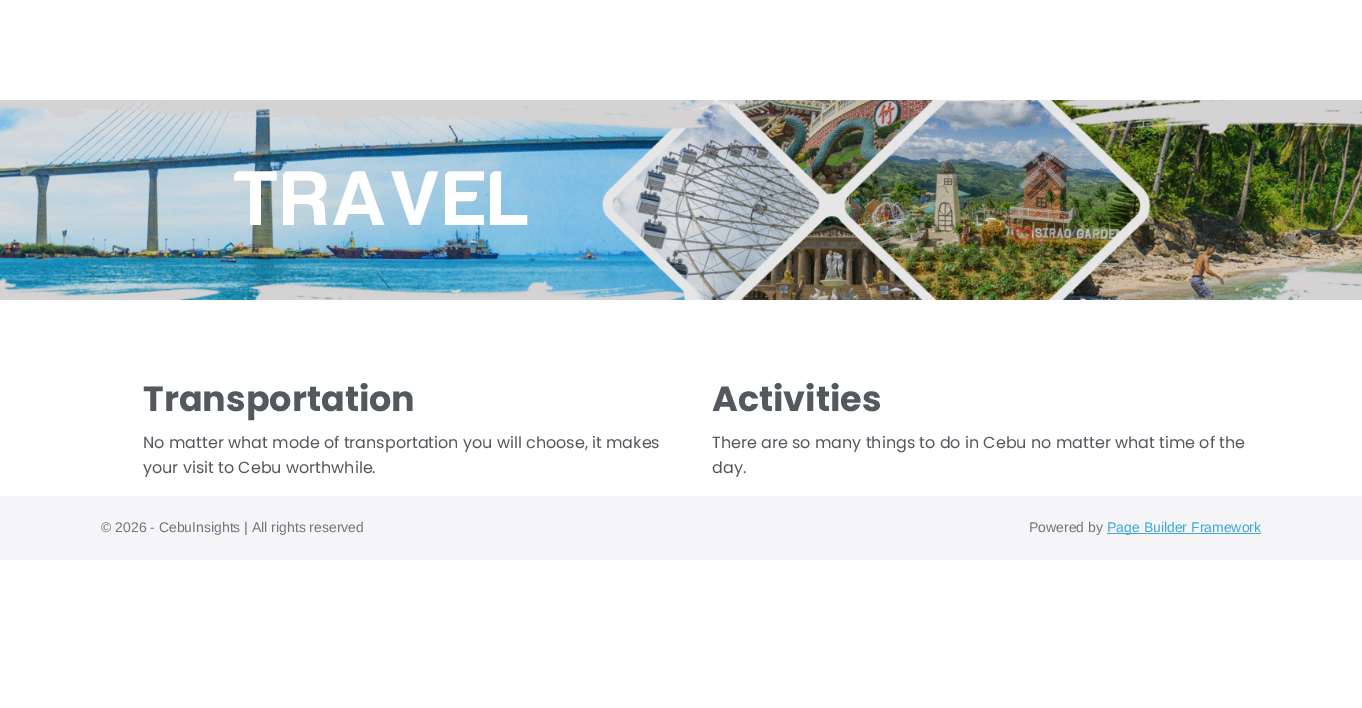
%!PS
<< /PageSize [1362 708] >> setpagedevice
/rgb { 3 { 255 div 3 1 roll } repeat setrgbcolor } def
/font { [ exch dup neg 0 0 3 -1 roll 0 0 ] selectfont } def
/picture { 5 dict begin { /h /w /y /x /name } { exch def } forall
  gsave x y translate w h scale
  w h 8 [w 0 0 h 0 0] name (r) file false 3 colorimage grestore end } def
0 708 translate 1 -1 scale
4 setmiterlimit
255 255 255 rgb
0 0 1362 708 rectfill
(img/1.rgb) 0 100 1362 200 picture
245 245 247 rgb
0 496 1362 64 rectfill
59 169 210 rgb
1107 533 154 1 rectfill
/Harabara-Bold 80 font
255 255 255 rgb
234 225 moveto 4 0 (TRAVEL) ashow
/Poppins-Bold 35 font
84 89 95 rgb
143 411 moveto (Transportation) show
/Poppins-Regular 16 font
143 448 moveto (No matter what mode of transportation you will choose, it makes) show
143 473 moveto (your visit to Cebu worthwhile.) show
/Poppins-Bold 35 font
712 411 moveto (Activities) show
/Poppins-Regular 16 font
712 448 moveto (There are so many things to do in Cebu no matter what time of the) show
712 473 moveto (day.) show
/LiberationSans-Regular 14 font
109 118 128 rgb
101 532 moveto (© 2026 - CebuInsights | All rights reserved) show
1029 532 moveto (Powered by) show
59 169 210 rgb
1107 532 moveto (Page Builder Framework) show
showpage
